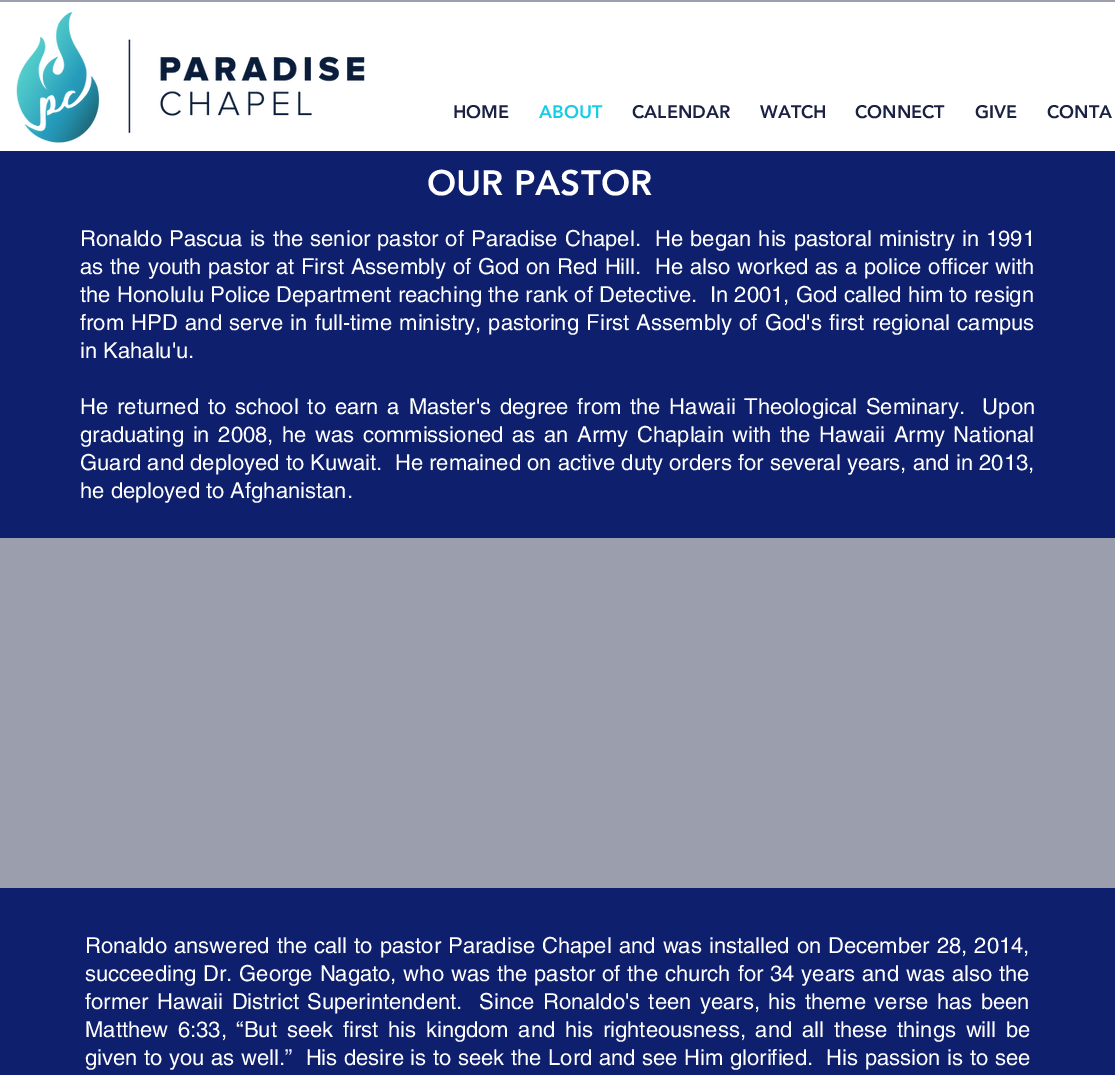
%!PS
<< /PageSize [1115 1075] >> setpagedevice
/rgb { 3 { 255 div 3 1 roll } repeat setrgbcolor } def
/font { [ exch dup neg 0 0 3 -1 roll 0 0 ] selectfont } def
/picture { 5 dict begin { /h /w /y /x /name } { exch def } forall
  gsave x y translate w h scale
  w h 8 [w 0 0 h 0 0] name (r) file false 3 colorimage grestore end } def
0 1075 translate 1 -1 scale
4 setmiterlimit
155 158 172 rgb
0 0 1115 1075 rectfill
255 255 255 rgb
0 2 1115 149 rectfill
(img/1.rgb) 16 12 349 131 picture
14 31 110 rgb
0 151 1115 387 rectfill
0 888 1115 187 rectfill
/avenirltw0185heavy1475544-Black 18 font
26 33 67 rgb
453 118 moveto (HOME) show
21 205 230 rgb
539 118 moveto (ABOUT) show
26 33 67 rgb
[
  [(CALENDAR) 632 118]
  [(WATCH) 760 118]
  [(CONNECT) 855 118]
  [(GIVE) 975 118]
  [(CONTA) 1047 118]
] { aload pop moveto show } forall
/avenirltw0185heavy1475544-Black 35 font
255 255 255 rgb
427 195 moveto (OUR PASTOR) show
/helvetica-Regular 22 font
80 246 moveto 1 0 32 (Ronaldo Pascua is the senior pastor of Paradise Chapel.  He began his pastoral ministry in 1991) widthshow
80 274 moveto 0.75 0 32 (as the youth pastor at) widthshow
301 274 moveto 0.75 0 32 (First Assembly of God) widthshow
526 274 moveto 0.75 0 32 (on Red Hill.  He also worked as a police officer with) widthshow
80 302 moveto 0.25 0 32 (the Honolulu Police Department reaching the rank of Detective.  In 2001, God called him to resign) widthshow
80 330 moveto 1.25 0 32 (from HPD and serve in full-time ministry, pastoring First Assembly of God's first regional campus) widthshow
80 358 moveto (in Kahalu'u.) show
80 414 moveto 2.75 0 32 (He returned to school to earn a Master's degree from the Hawaii Theological Seminary.  Upon) widthshow
80 442 moveto 2.5 0 32 (graduating in 2008, he was commissioned as an) widthshow
577 442 moveto 2.5 0 32 (Army Chaplain) widthshow
732 442 moveto 2.5 0 32 (with the Hawaii Army National) widthshow
80 470 moveto 0.1 0 32 (Guard and deployed to Kuwait.  He remained on active duty orders for several years, and in 2013,) widthshow
80 498 moveto (he deployed to Afghanistan.) show
85 953 moveto 1 0 32 (Ronaldo answered the call to pastor Paradise Chapel and was installed on December 28, 2014,) widthshow
85 981 moveto 0.75 0 32 (succeeding Dr. George Nagato, who was the pastor of the church for 34 years and was also the) widthshow
85 1009 moveto (former) show
157 1009 moveto 2.4 0 32 (Hawaii District) widthshow
307 1009 moveto 2.4 0 32 (Superintendent.  Since Ronaldo's teen years, his theme verse has been) widthshow
85 1037 moveto 3.6 0 32 (Matthew 6:33, “But seek first his kingdom and his righteousness, and all these things will be) widthshow
85 1065 moveto 0.5 0 32 (given to you as well.”  His desire is to seek the Lord and see Him glorified.  His passion is to see) widthshow
showpage
